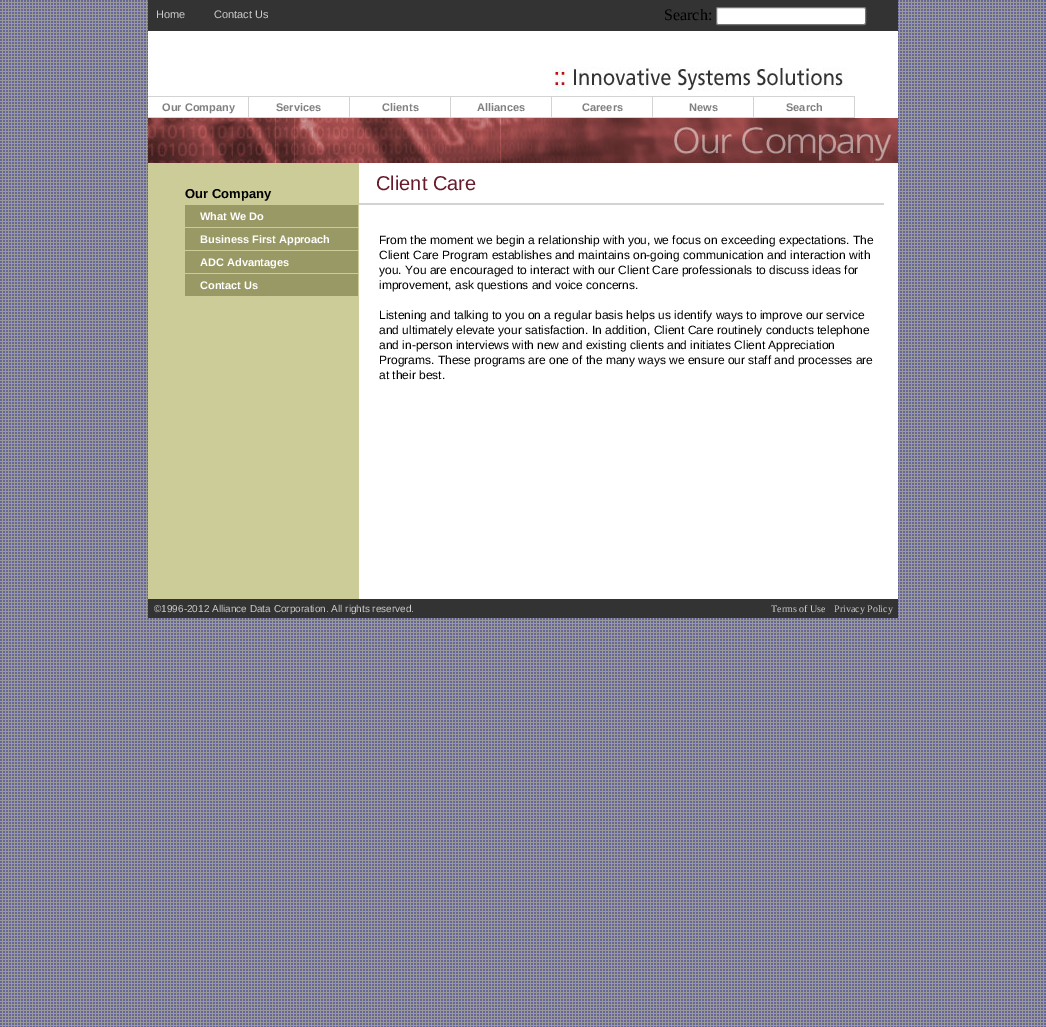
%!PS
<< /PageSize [1046 1027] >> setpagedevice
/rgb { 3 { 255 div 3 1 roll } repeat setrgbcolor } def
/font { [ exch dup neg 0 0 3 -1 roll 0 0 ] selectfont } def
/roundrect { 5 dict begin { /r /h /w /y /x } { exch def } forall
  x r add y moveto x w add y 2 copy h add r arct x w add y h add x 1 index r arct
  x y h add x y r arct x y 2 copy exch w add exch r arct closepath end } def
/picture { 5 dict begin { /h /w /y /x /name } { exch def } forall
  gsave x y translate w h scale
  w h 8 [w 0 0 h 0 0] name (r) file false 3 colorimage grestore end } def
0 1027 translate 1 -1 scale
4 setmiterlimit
255 255 255 rgb
0 0 1046 1027 rectfill
(img/1.rgb) 0 0 1046 1027 picture
148 31 750 87 rectfill
51 51 51 rgb
148 0 750 31 rectfill
255 255 255 rgb
716.5 7.5 149 17 1.5 roundrect gsave fill grestore
118 118 118 rgb
stroke
(img/2.rgb) 552 67 296 24 picture
[
  [148 96 707 1 211 211 211]
  [248 96 1 22 211 211 211]
  [148 117 101 1 211 211 211]
  [349 96 1 22 211 211 211]
  [249 117 101 1 211 211 211]
  [450 96 1 22 211 211 211]
  [350 117 101 1 211 211 211]
  [551 96 1 22 211 211 211]
  [451 117 101 1 211 211 211]
  [652 96 1 22 211 211 211]
  [552 117 101 1 211 211 211]
  [753 96 1 22 211 211 211]
  [653 117 101 1 211 211 211]
  [854 96 1 22 211 211 211]
  [754 117 101 1 211 211 211]
] { aload pop rgb rectfill } forall
(img/3.rgb) 148 118 750 45 picture
[
  [148 163 211 436 204 204 153]
  [185 205 173 22 153 153 102]
  [185 228 173 22 153 153 102]
  [185 251 173 22 153 153 102]
  [185 274 173 22 153 153 102]
  [359 163 539 436 255 255 255]
  [359 203 525 2 211 211 211]
  [148 599 750 19 51 51 51]
] { aload pop rgb rectfill } forall
/LiberationSans-Regular 11 font
204 204 204 rgb
156 18 moveto (Home) show
214 18 moveto (Contact Us) show
/LiberationSerif-Regular 16 font
0 0 0 rgb
664 20 moveto (Search:) show
/LiberationSans-Bold 11 font
128 128 128 rgb
[
  [(Our Company) 162 111]
  [(Services) 276 111]
  [(Clients) 382 111]
  [(Alliances) 477 111]
  [(Careers) 582 111]
  [(News) 689 111]
  [(Search) 786 111]
] { aload pop moveto show } forall
/LiberationSans-Bold 13 font
0 0 0 rgb
185 198 moveto (Our Company) show
/LiberationSans-Bold 11 font
255 255 255 rgb
[
  [(What We Do) 200 220]
  [(Business First Approach) 200 243]
  [(ADC Advantages) 200 266]
  [(Contact Us) 200 289]
] { aload pop moveto show } forall
/LiberationSans-Regular 20 font
102 26 42 rgb
376 190 moveto (Client Care) show
/LiberationSans-Regular 12 font
0 0 0 rgb
[
  [(From the moment we begin a relationship with you, we focus on exceeding expectations. The) 379 244]
  [(Client Care Program establishes and maintains on-going communication and interaction with) 379 259]
  [(you. You are encouraged to interact with our Client Care professionals to discuss ideas for) 379 274]
  [(improvement, ask questions and voice concerns.) 379 289]
  [(Listening and talking to you on a regular basis helps us identify ways to improve our service) 379 319]
  [(and ultimately elevate your satisfaction. In addition, Client Care routinely conducts telephone) 379 334]
  [(and in-person interviews with new and existing clients and initiates Client Appreciation) 379 349]
  [(Programs. These programs are one of the many ways we ensure our staff and processes are) 379 364]
  [(at their best.) 379 379]
] { aload pop moveto show } forall
/LiberationSans-Regular 10 font
204 204 204 rgb
154 612 moveto (©1996-2012 Alliance Data Corporation. All rights reserved.) show
/LiberationSerif-Regular 10 font
771 612 moveto (Terms of Use) show
834 612 moveto (Privacy Policy) show
showpage
